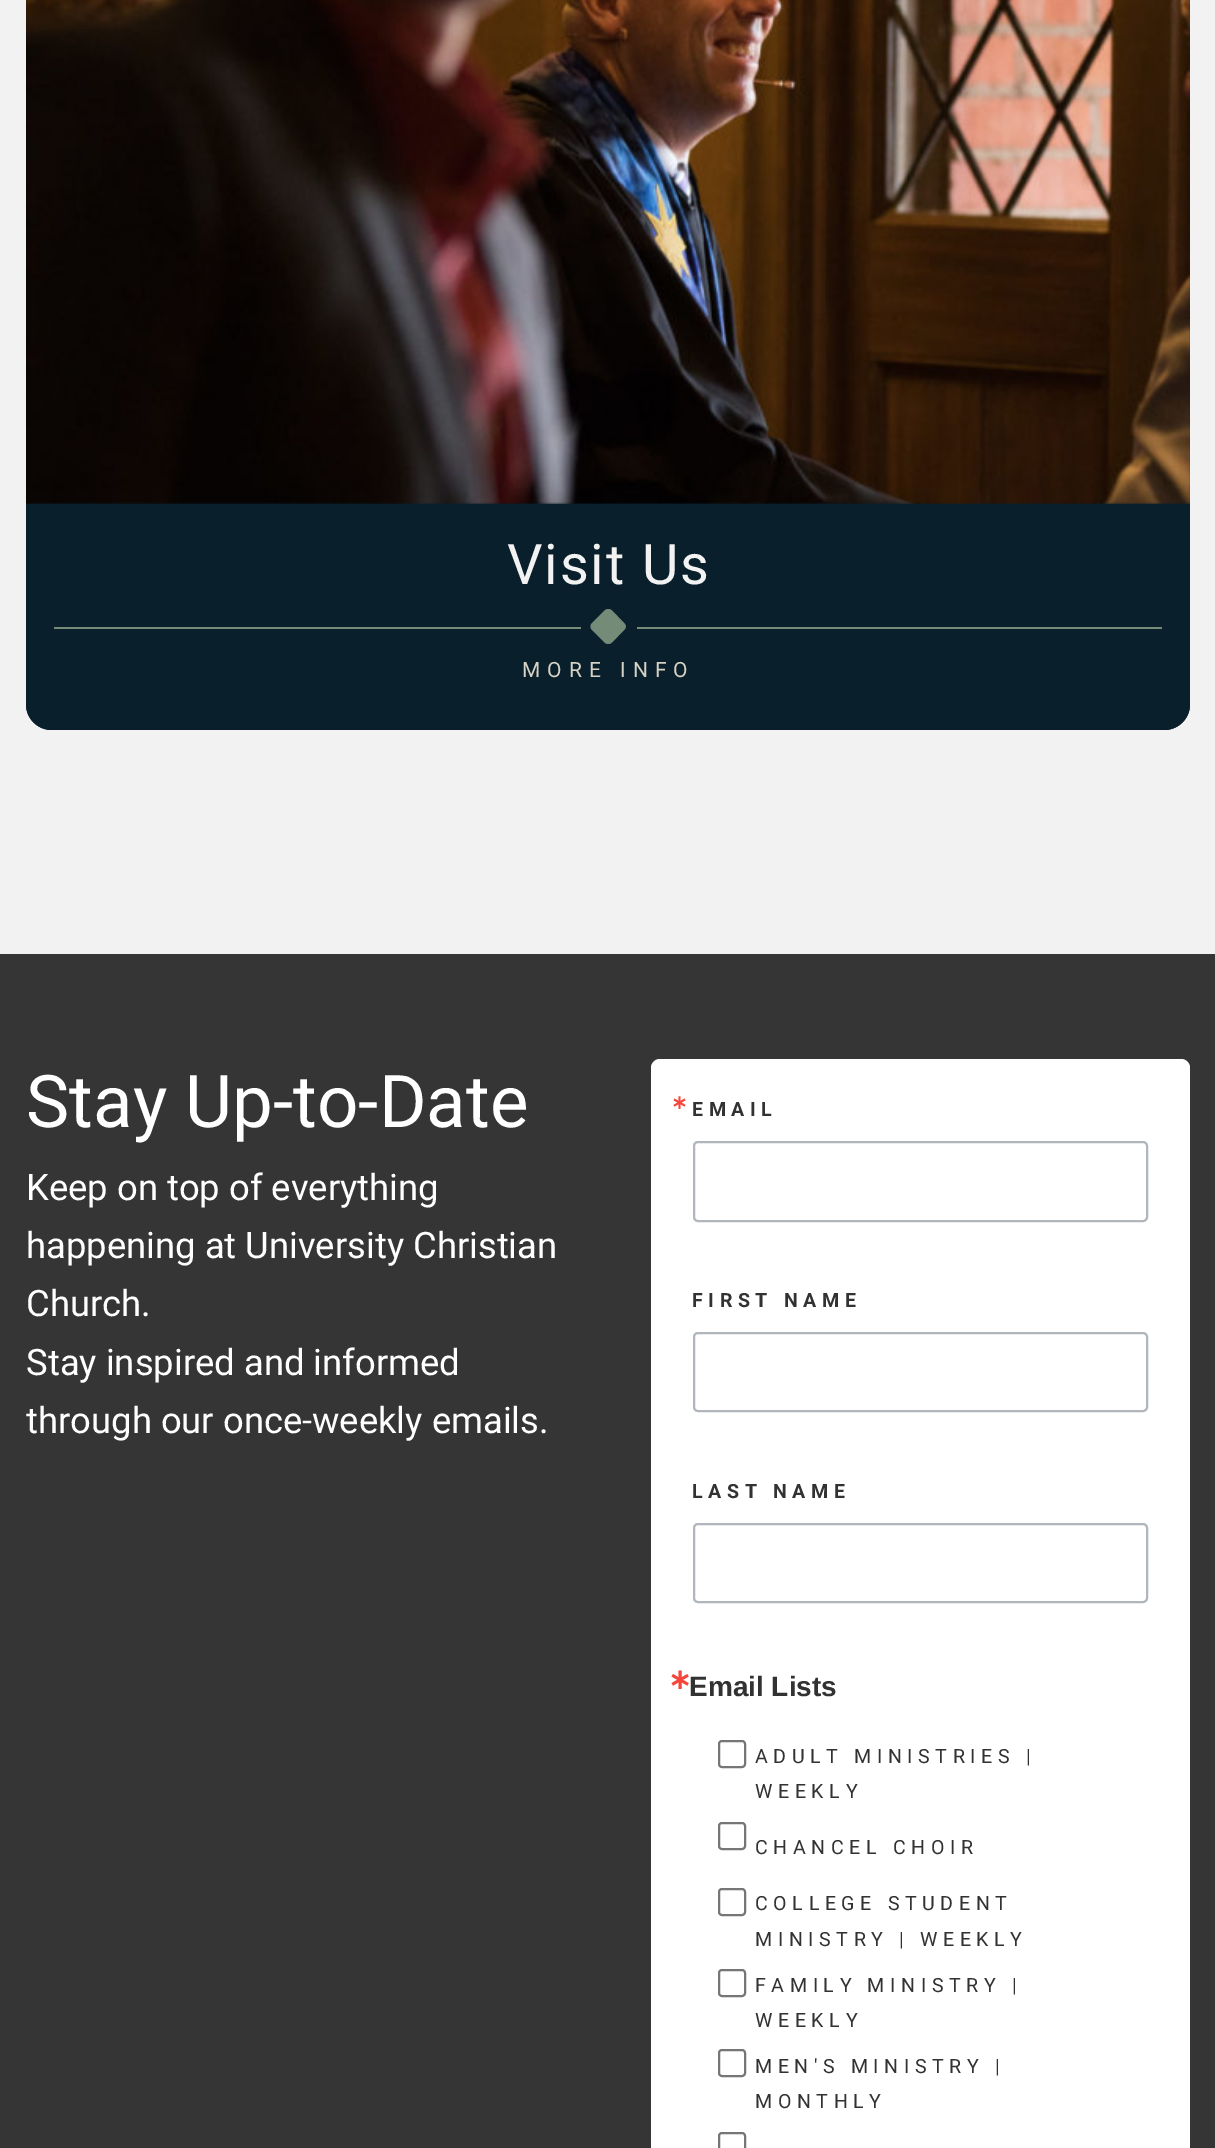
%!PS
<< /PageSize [1215 2148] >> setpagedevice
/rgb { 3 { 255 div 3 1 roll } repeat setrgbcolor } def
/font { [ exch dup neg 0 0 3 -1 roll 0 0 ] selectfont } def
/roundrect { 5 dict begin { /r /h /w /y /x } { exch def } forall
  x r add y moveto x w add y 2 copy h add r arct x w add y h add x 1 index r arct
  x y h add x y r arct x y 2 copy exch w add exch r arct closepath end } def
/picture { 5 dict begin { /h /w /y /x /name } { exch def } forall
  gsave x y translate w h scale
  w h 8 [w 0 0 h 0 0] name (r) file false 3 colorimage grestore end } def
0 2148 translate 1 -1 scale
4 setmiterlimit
53 53 53 rgb
0 0 1215 2148 rectfill
242 242 242 rgb
0 0 1215 954 rectfill
9 31 44 rgb
26 -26 1164 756 26 roundrect fill
(img/1.rgb) 26 0 1164 504 picture
26 504 moveto 1190 504 lineto 1190 704 lineto 1190 718.5 1178.5 730 1164 730 curveto 52 730 lineto 37.5 730 26 718.5 26 704 curveto closepath fill
116 139 119 rgb
54 627 1108 2 rectfill
9 31 44 rgb
581 627 56 2 rectfill
116 139 119 rgb
612 610.5 moveto 624 623 lineto 626.5 625 626.5 628 624 630 curveto 612 642.5 lineto 610 644.5 606.5 644.5 604.5 642.5 curveto 592 630 lineto 590 628 590 625 592 623 curveto 604.5 610.5 lineto 606.5 608.5 610 608.5 612 610.5 curveto closepath fill
255 255 255 rgb
651 1059 539 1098 9 roundrect fill
176 182 187 rgb
2 setlinewidth
694 1142 453 79 4 roundrect stroke
694 1333 453 78 4 roundrect stroke
694 1524 453 78 4 roundrect stroke
118 118 118 rgb
719 1741 26 26 3 roundrect stroke
719 1823 26 26 3 roundrect stroke
719 1889 26 26 3 roundrect stroke
719 1970 26 26 3 roundrect stroke
719 2050 26 26 3 roundrect stroke
719 2133 26 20 3 roundrect stroke
/Roboto-Regular 56 font
242 242 242 rgb
507 584 moveto 1.75 0 (Visit Us) ashow
/Roboto-Regular 21 font
214 210 196 rgb
522 677 moveto 7 0 (MORE INFO) ashow
/Roboto-Regular 72.75 font
255 255 255 rgb
26 1127 moveto (Stay Up-to-Date) show
/Roboto-Regular 36.4 font
[
  [(Keep on top of everything) 26 1200]
  [(happening at University Christian) 26 1258]
  [(Church.) 26 1316]
  [(Stay inspired and informed) 26 1375]
  [(through our once-weekly emails.) 26 1433]
] { aload pop moveto show } forall
/DejaVuSans-Bold 19.6 font
245 70 59 rgb
671 1109 moveto 5.6 0 (∗) ashow
/Roboto-Bold 19.6 font
50 50 50 rgb
692 1116 moveto 5.6 0 (EMAIL) ashow
692 1307 moveto 5.6 0 (FIRST NAME) ashow
692 1498 moveto 5.6 0 (LAST NAME) ashow
/DejaVuSans-Bold 28 font
245 70 59 rgb
668 1689 moveto (∗) show
/LiberationSans-Bold 28 font
50 50 50 rgb
689 1696 moveto (Email Lists) show
/Roboto-Regular 19.6 font
755 1763 moveto 5.6 0 (ADULT MINISTRIES |) ashow
755 1798 moveto 5.6 0 (WEEKLY) ashow
755 1854 moveto 5.6 0 (CHANCEL CHOIR) ashow
755 1910 moveto 5.6 0 (COLLEGE STUDENT) ashow
755 1946 moveto 5.6 0 (MINISTRY | WEEKLY) ashow
755 1992 moveto 5.6 0 (FAMILY MINISTRY |) ashow
755 2027 moveto 5.6 0 (WEEKLY) ashow
755 2073 moveto 5.6 0 (MEN'S MINISTRY |) ashow
755 2108 moveto 5.6 0 (MONTHLY) ashow
showpage
